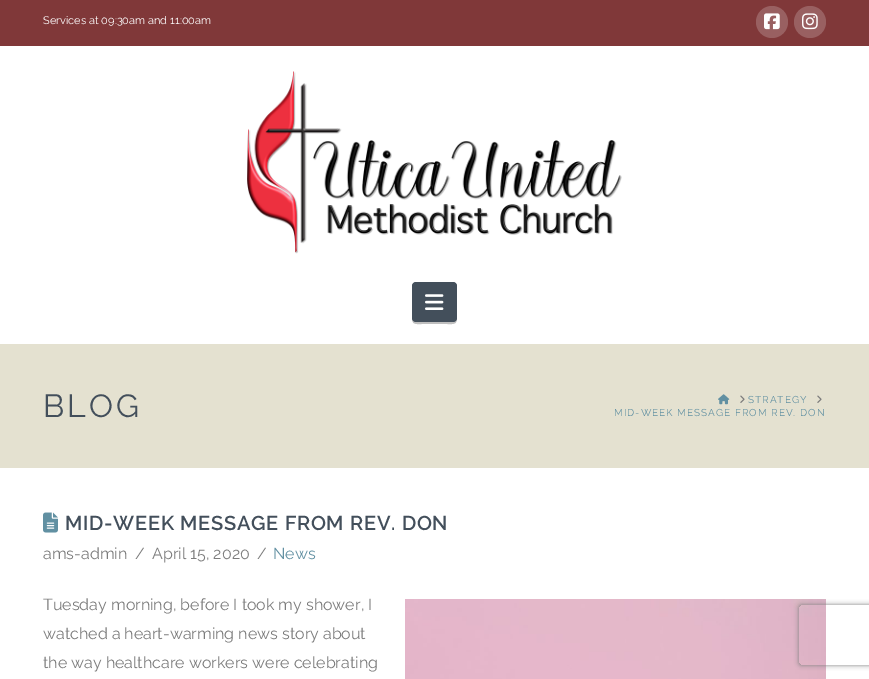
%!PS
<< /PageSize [869 679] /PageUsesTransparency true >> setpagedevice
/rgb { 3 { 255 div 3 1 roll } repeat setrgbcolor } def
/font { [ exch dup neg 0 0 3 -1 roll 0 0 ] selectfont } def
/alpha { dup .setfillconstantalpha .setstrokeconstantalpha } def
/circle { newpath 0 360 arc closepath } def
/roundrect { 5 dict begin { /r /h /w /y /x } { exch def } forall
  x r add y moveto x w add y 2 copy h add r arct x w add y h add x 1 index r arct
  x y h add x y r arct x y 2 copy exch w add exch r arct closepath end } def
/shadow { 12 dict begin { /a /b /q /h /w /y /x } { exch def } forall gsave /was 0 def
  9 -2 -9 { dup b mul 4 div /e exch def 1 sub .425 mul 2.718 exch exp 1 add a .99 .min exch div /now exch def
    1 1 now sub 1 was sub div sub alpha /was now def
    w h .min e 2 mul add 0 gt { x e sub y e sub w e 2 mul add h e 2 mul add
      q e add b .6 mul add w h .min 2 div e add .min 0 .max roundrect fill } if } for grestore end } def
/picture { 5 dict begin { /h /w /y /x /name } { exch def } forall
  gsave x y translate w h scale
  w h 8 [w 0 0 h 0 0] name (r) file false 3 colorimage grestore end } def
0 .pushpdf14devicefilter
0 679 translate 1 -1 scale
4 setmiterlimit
255 255 255 rgb
0 0 869 679 rectfill
128 56 57 rgb
0 0 869 46 rectfill
153 96 97 rgb
772 22 16 circle fill
(img/1.rgb) 764 13 16 17 picture
810 22 16 circle fill
(img/2.rgb) 802 13 16 17 picture
(img/3.rgb) 247 71 375 183 picture
191 191 191 rgb
412 318 moveto 412 325 416 324 422 324 curveto 447 324 lineto 453 324 457 325 457 318 curveto 457 320 455 322 453 322 curveto 416 322 lineto 414 322 412 320 412 318 curveto closepath fill
67 79 91 rgb
412 282 45 40 4 roundrect fill
(img/4.rgb) 425 294 19 16 picture
228 225 208 rgb
0 344 869 124 rectfill
(img/5.rgb) 718 394 12 11 picture
(img/6.rgb) 740 395 5 8 picture
(img/6.rgb) 817 395 5 8 picture
(img/7.rgb) 43 512 15 21 picture
(img/8.rgb) 405 599 421 80 picture
gsave
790 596 moveto 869 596 lineto 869 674 lineto 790 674 lineto closepath 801 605 moveto 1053 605 lineto 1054 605 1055 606 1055 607 curveto 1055 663 lineto 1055 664 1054 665 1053 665 curveto 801 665 lineto 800 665 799 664 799 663 curveto 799 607 lineto 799 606 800 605 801 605 curveto closepath eoclip newpath
128 128 128 rgb
799 605 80 60 2 2.5 1 shadow
grestore
/Raleway-Regular 11 font
255 255 255 rgb
43 24 moveto (Services at 09:30am and 11:00am) show
/Raleway-Regular 32 font
67 79 91 rgb
43 417 moveto 3 0 (BLOG) ashow
/Raleway-Regular 10 font
97 144 162 rgb
748 403 moveto 1 0 (STRATEGY) ashow
614 416 moveto 1 0 (MID-WEEK MESSAGE FROM REV. DON) ashow
/Raleway-SemiBold 20 font
67 79 91 rgb
65 530 moveto 0.7 0 (MID-WEEK MESSAGE FROM REV. DON) ashow
/Raleway-Regular 16 font
124 124 124 rgb
[
  [(ams-admin) 43 559]
  [(/) 135 559]
  [(April 15, 2020) 152 559]
  [(/) 257 559]
] { aload pop moveto show } forall
97 144 162 rgb
273 559 moveto (News) show
124 124 124 rgb
[
  [(Tuesday morning, before I took my shower, I) 43 610]
  [(watched a heart-warming news story about) 43 639]
  [(the way healthcare workers were celebrating) 43 668]
] { aload pop moveto show } forall
.poppdf14devicefilter showpage
